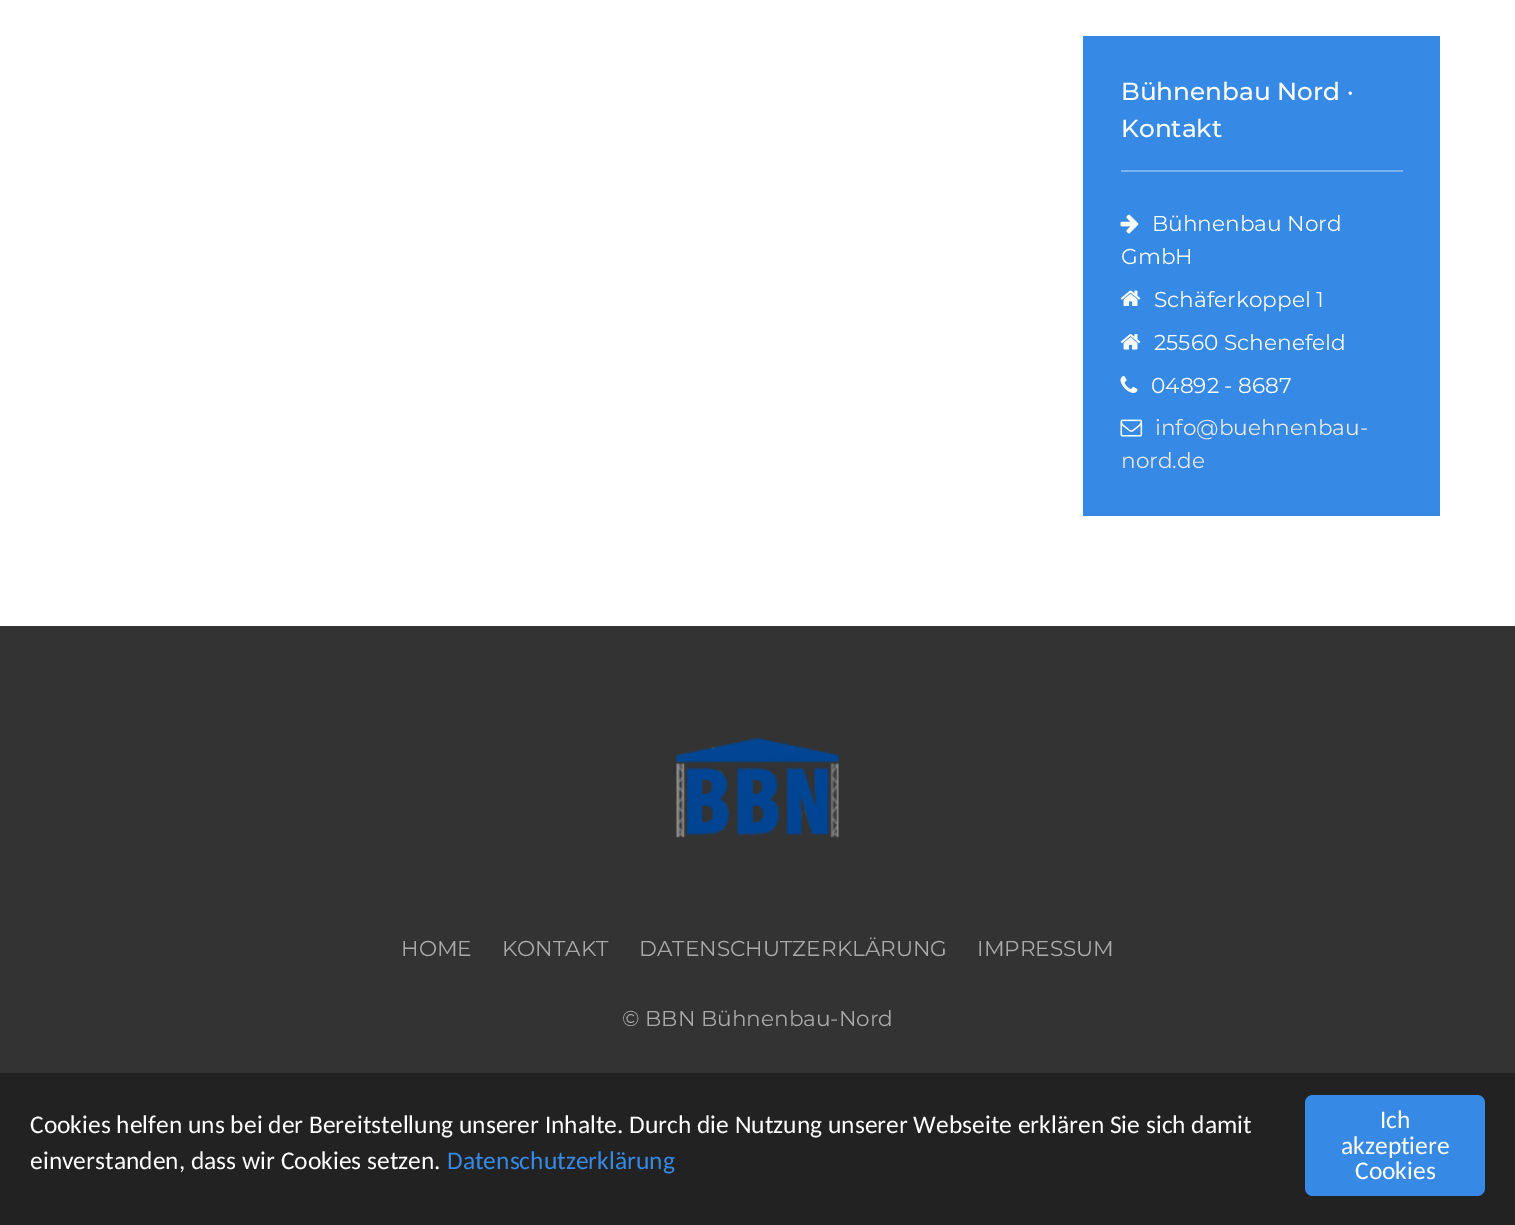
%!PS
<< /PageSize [1515 1225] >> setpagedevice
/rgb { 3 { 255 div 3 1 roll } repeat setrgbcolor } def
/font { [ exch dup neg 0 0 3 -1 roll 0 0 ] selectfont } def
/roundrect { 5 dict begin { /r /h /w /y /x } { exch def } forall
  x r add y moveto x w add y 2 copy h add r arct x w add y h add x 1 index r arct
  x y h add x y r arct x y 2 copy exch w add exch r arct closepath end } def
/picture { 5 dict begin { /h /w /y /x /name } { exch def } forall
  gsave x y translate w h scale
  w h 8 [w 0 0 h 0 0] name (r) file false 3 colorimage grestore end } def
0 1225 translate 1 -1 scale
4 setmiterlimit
255 255 255 rgb
0 0 1515 1225 rectfill
55 137 230 rgb
1083 36 357 480 rectfill
123 177 239 rgb
1121 170 282 2 rectfill
(img/1.rgb) 1120 214 19 20 picture
(img/2.rgb) 1120 290 21 16 picture
(img/3.rgb) 1120 334 21 16 picture
(img/4.rgb) 1120 376 18 17 picture
(img/5.rgb) 1120 419 23 18 picture
51 51 51 rgb
0 626 1515 447 rectfill
(img/6.rgb) 676 737 163 101 picture
34 34 34 rgb
0 1073 1515 152 rectfill
55 137 230 rgb
1305 1095 180 101 8 roundrect fill
/Montserrat-Medium 24.75 font
255 255 255 rgb
1121 100 moveto (Bühnenbau Nord ·) show
1121 137 moveto (Kontakt) show
/Montserrat-Regular 21.6 font
[
  [(Bühnenbau Nord) 1152 231]
  [(GmbH) 1121 264]
  [(Schäferkoppel 1) 1154 307]
  [(25560 Schenefeld) 1154 350]
  [(04892 - 8687) 1151 393]
] { aload pop moveto show } forall
234 234 234 rgb
1155 435 moveto (info@buehnenbau-) show
1121 468 moveto (nord.de) show
170 170 170 rgb
[
  [(HOME) 401 956]
  [(KONTAKT) 502 956]
  [(DATENSCHUTZERKLÄRUNG) 639 956]
  [(IMPRESSUM) 977 956]
  [(© BBN Bühnenbau-Nord) 622 1026]
] { aload pop moveto show } forall
/Carlito-Regular 25.5 font
255 255 255 rgb
30 1133 moveto (Cookies helfen uns bei der Bereitstellung unserer Inhalte. Durch die Nutzung unserer Webseite erklären Sie sich damit) show
30 1169 moveto (einverstanden, dass wir Cookies setzen.) show
55 137 230 rgb
447 1169 moveto (Datenschutzerklärung) show
255 255 255 rgb
[
  [(Ich) 1380 1128]
  [(akzeptiere) 1341 1154]
  [(Cookies) 1355 1179]
] { aload pop moveto show } forall
showpage
